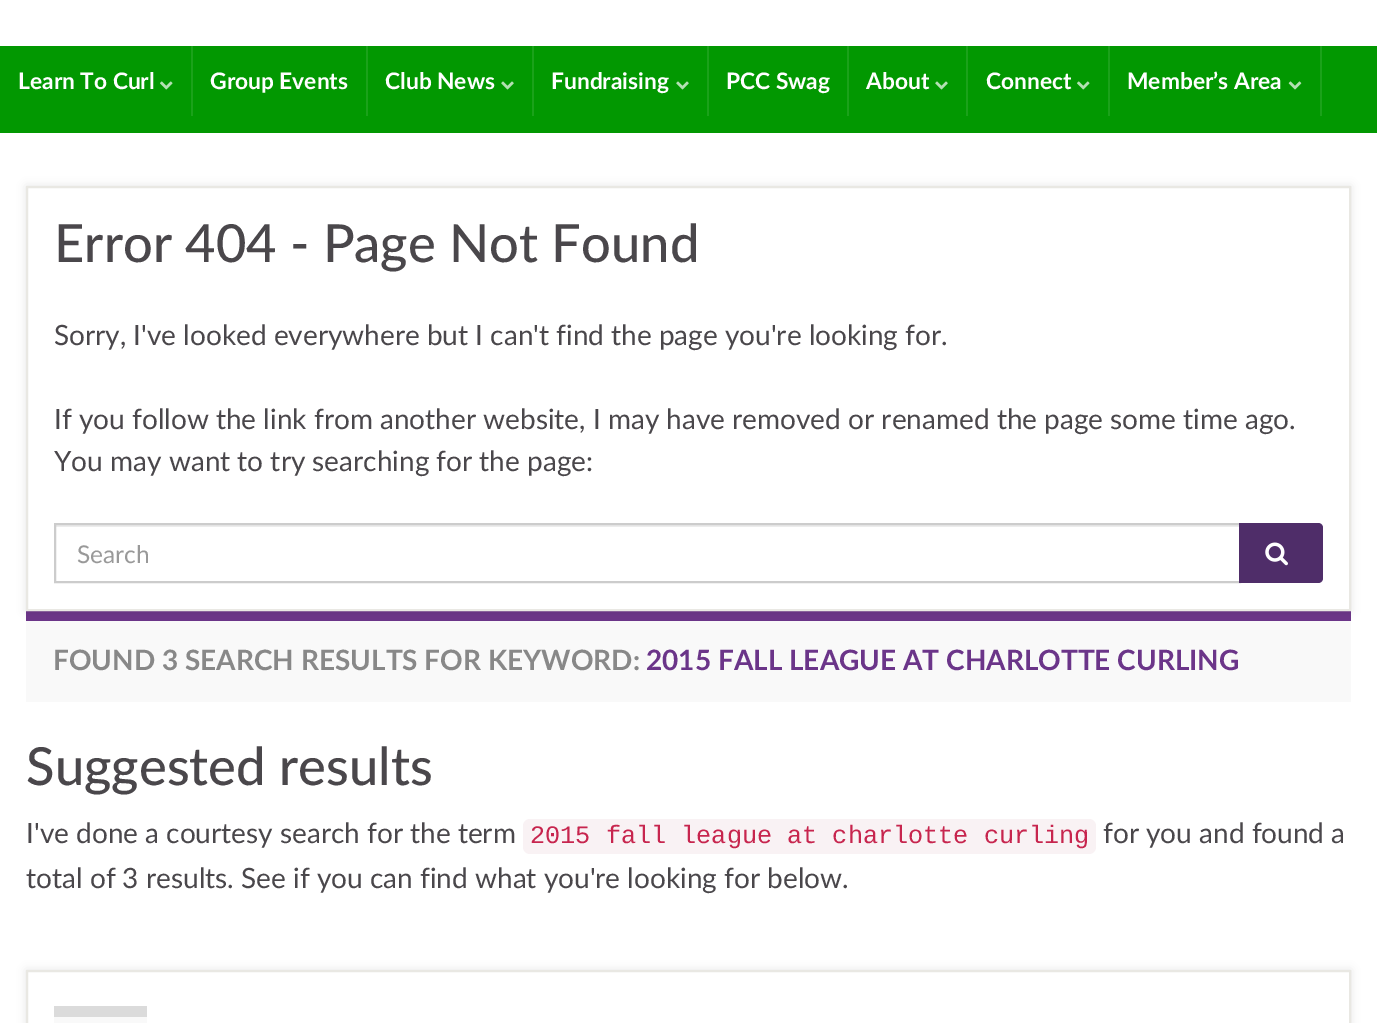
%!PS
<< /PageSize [1377 1023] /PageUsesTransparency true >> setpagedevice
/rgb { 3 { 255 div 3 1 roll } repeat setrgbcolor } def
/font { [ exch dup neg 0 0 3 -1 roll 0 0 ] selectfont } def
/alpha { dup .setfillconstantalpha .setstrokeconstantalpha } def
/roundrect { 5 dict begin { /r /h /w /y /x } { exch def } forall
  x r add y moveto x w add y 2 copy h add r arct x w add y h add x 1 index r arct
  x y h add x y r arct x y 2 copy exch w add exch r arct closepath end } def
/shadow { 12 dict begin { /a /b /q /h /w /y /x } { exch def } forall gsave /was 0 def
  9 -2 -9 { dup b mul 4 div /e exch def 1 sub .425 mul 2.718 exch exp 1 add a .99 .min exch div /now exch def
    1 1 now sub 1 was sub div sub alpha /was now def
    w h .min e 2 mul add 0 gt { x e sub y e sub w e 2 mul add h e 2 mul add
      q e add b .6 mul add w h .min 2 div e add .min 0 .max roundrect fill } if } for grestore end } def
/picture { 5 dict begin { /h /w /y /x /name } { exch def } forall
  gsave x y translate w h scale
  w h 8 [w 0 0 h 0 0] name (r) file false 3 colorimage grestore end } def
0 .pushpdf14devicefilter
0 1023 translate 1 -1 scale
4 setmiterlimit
255 255 255 rgb
0 0 1377 1023 rectfill
2 152 1 rgb
0 46 1377 87 rectfill
27 162 26 rgb
191 46 2 70 rectfill
(img/1.rgb) 160 81 13 9 picture
366 46 2 70 rectfill
532 46 2 70 rectfill
(img/2.rgb) 501 81 13 9 picture
707 46 2 70 rectfill
(img/2.rgb) 676 81 13 9 picture
847 46 2 70 rectfill
966 46 2 70 rectfill
(img/2.rgb) 935 81 13 9 picture
1108 46 2 70 rectfill
(img/1.rgb) 1077 81 13 9 picture
1320 46 2 70 rectfill
(img/3.rgb) 1288 81 14 9 picture
249 249 249 rgb
26 621 1325 81 rectfill
107 53 137 rgb
26 611 1325 10 rectfill
0 0 0 rgb
26 186 1325 425 0 4.5 0.1 shadow
255 255 255 rgb
27 187 moveto 1350 187 lineto 1350 610 lineto 27 610 lineto closepath gsave fill grestore
233 232 227 rgb
2 setlinewidth
stroke
236 236 236 rgb
56 525 1183 2 rectfill
204 204 204 rgb
55 524 1185 58 rectstroke
79 45 105 rgb
1239 523 moveto 1318 523 lineto 1321 523 1323 525 1323 528 curveto 1323 578 lineto 1323 581 1321 583 1318 583 curveto 1239 583 lineto closepath fill
(img/4.rgb) 1265 542 23 24 picture
249 242 244 rgb
523 819 573 35 7 roundrect fill
0 0 0 rgb
26 970 1325 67 0 4.5 0.1 shadow
255 255 255 rgb
27 971 moveto 1350 971 lineto 1350 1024 lineto 27 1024 lineto closepath gsave fill grestore
233 232 227 rgb
stroke
249 249 249 rgb
54 1017 93 6 rectfill
219 219 219 rgb
54 1006 93 11 rectfill
/Lato-Bold 22.75 font
255 255 255 rgb
[
  [(Learn To Curl) 18 89]
  [(Group Events) 210 89]
  [(Club News) 385 89]
  [(Fundraising) 551 89]
  [(PCC Swag) 726 89]
  [(About) 866 89]
  [(Connect) 986 89]
  [(Member’s Area) 1127 89]
] { aload pop moveto show } forall
/Lato-Medium 52.5 font
74 71 75 rgb
54 262 moveto (Error 404 - Page Not Found) show
/Lato-Regular 28 font
[
  [(Sorry, I've looked everywhere but I can't find the page you're looking for.) 54 345]
  [(If you follow the link from another website, I may have removed or renamed the page some time ago.) 54 429]
  [(You may want to try searching for the page:) 54 471]
] { aload pop moveto show } forall
/Lato-Regular 24.5 font
153 153 153 rgb
77 563 moveto (Search) show
/Lato-Bold 28 font
136 136 136 rgb
53 670 moveto (FOUND 3 SEARCH RESULTS FOR KEYWORD:) show
107 53 137 rgb
646 670 moveto (2015 FALL LEAGUE AT CHARLOTTE CURLING) show
/Lato-Medium 52.5 font
74 71 75 rgb
26 785 moveto (Suggested results) show
/Lato-Regular 28 font
26 843 moveto (I've done a courtesy search for the term) show
/LiberationMono-Regular 25.2 font
199 37 78 rgb
530 843 moveto (2015 fall league at charlotte curling) show
/Lato-Regular 28 font
74 71 75 rgb
1103 843 moveto (for you and found a) show
26 888 moveto (total of 3 results. See if you can find what you're looking for below.) show
.poppdf14devicefilter showpage
